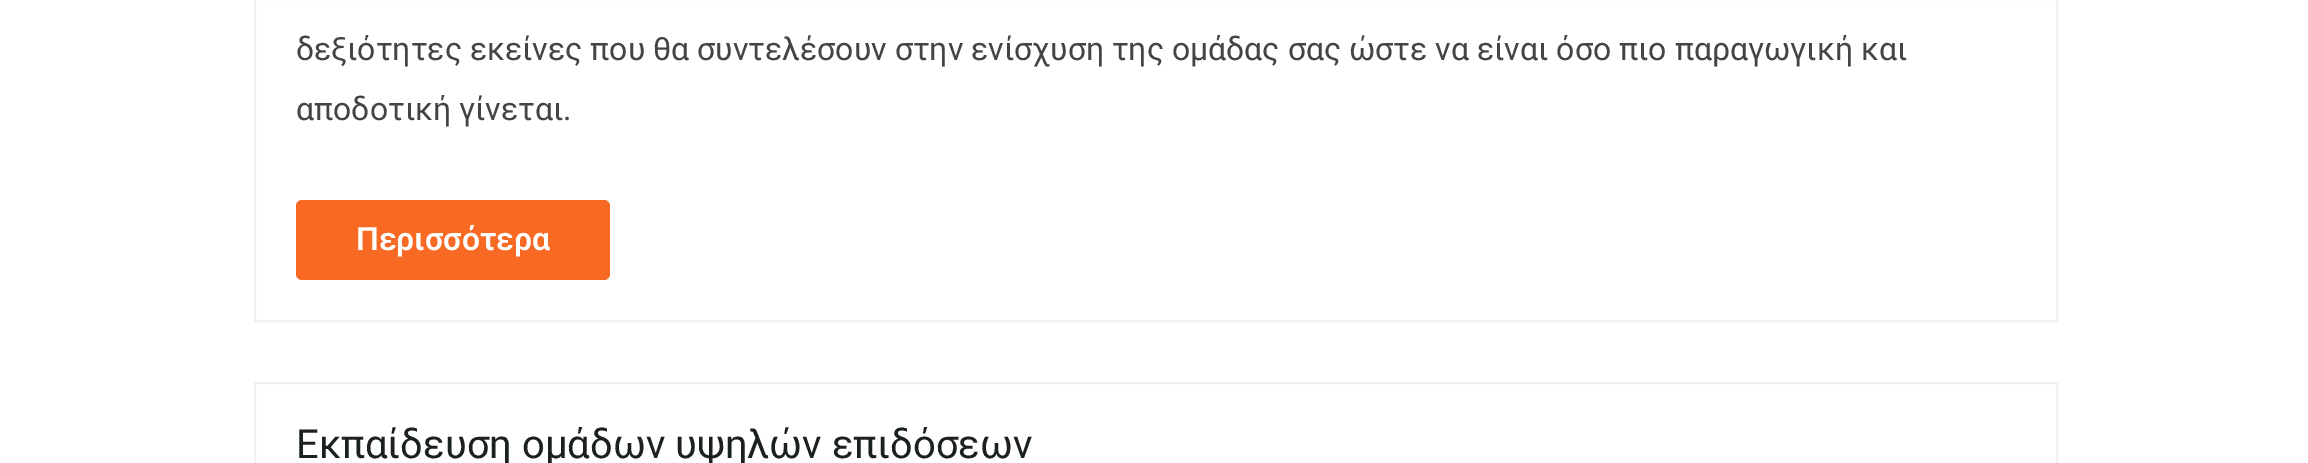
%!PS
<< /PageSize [2308 463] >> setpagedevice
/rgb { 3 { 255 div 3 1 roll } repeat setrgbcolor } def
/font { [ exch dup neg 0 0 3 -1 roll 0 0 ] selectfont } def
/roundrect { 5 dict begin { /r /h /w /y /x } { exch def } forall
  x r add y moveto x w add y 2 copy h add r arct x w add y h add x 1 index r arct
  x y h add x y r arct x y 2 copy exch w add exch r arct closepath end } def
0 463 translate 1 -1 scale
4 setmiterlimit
255 255 255 rgb
0 0 2308 463 rectfill
241 241 241 rgb
2 setlinewidth
255 -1 1802 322 rectstroke
248 105 35 rgb
296 200 314 80 6 roundrect fill
241 241 241 rgb
255 383 1802 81 rectstroke
/Roboto-Regular 32 font
68 68 68 rgb
296 60 moveto (δεξιότητες εκείνες που θα συντελέσουν στην ενίσχυση της ομάδας σας ώστε να είναι όσο πιο παραγωγική και) show
296 120 moveto (αποδοτική γίνεται.) show
/Roboto-SemiBold 32 font
255 255 255 rgb
356 250 moveto (Περισσότερα) show
/Roboto-Regular 40 font
27 33 32 rgb
296 458 moveto (Εκπαίδευση ομάδων υψηλών επιδόσεων) show
showpage
